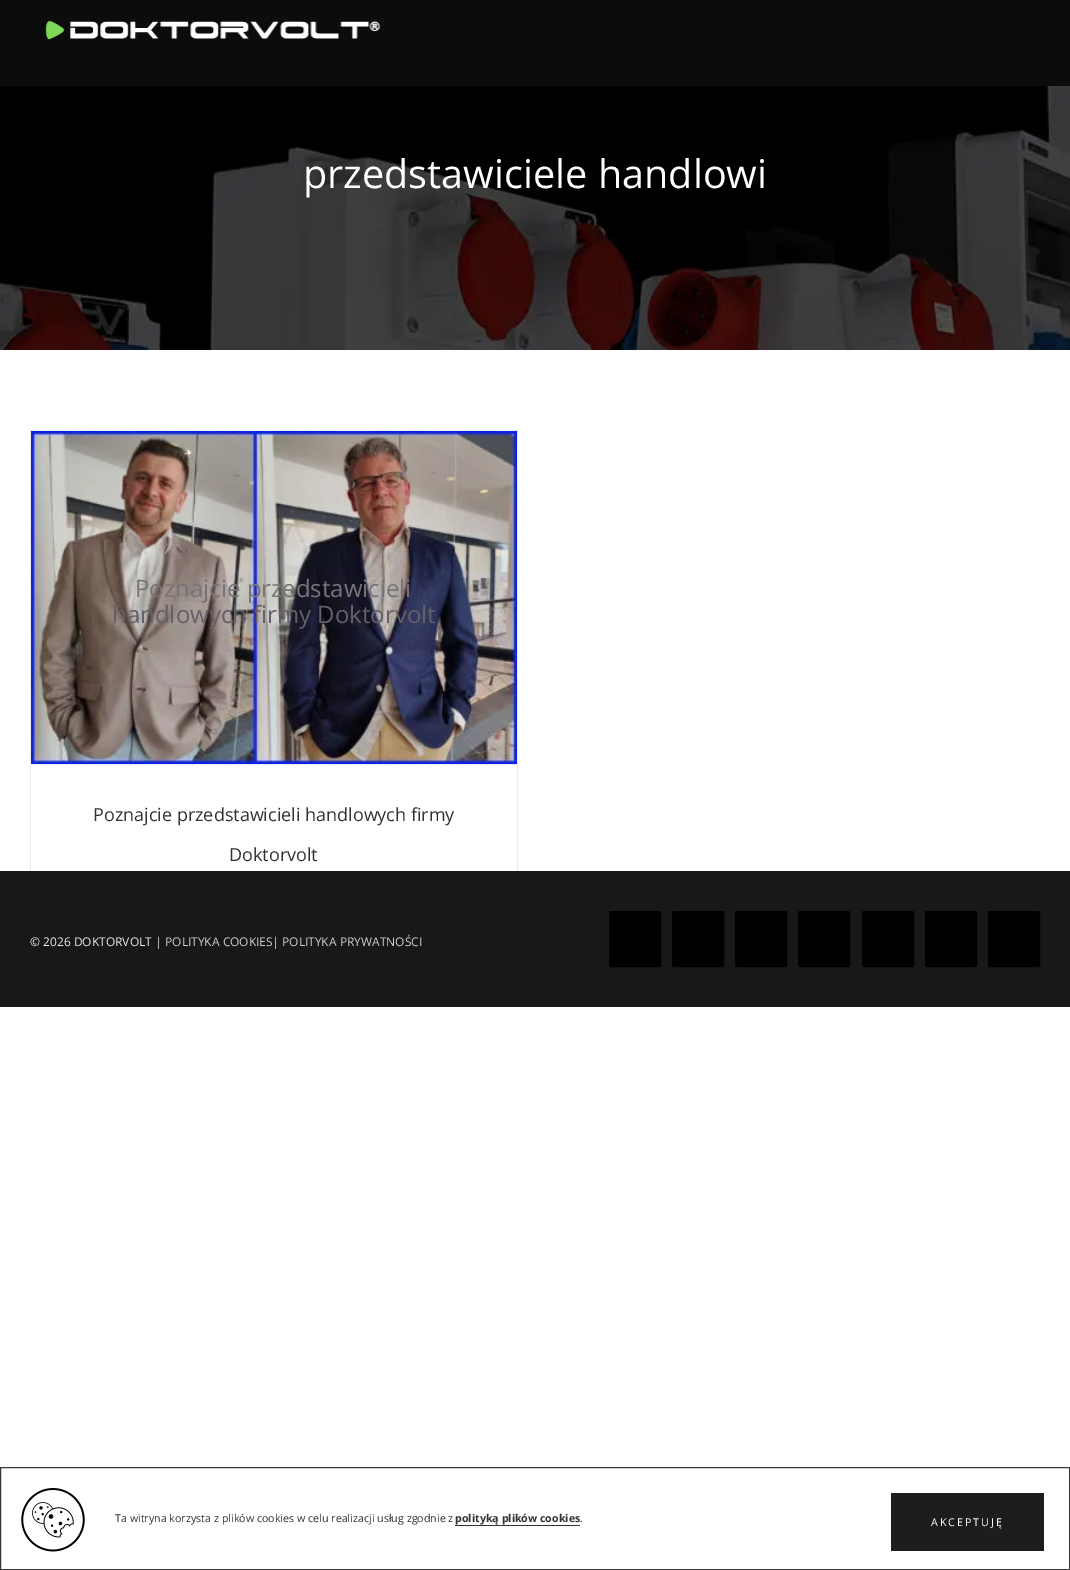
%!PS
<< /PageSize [1070 1570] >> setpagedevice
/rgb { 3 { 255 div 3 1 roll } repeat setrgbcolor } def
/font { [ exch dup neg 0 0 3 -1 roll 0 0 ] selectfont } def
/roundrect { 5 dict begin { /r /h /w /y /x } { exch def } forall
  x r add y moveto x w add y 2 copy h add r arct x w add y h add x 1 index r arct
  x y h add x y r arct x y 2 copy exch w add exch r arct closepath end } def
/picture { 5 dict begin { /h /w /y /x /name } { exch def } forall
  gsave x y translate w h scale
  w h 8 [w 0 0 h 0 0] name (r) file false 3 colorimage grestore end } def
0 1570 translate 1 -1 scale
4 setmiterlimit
255 255 255 rgb
0 0 1070 1570 rectfill
12 12 13 rgb
0 0 1070 86 rectfill
(img/1.rgb) 45 21 336 19 picture
(img/2.rgb) 0 86 1070 264 picture
[
  [30 430 488 1 235 234 234]
  [517 430 1 441 235 234 234]
  [30 430 1 441 235 234 234]
  [31 764 486 1 235 234 234]
] { aload pop rgb rectfill } forall
(img/3.rgb) 31 431 486 333 picture
24 24 25 rgb
0 871 1070 136 rectfill
0 0 0 rgb
609.5 911.5 51 55 1.5 roundrect gsave fill grestore
stroke
672.5 911.5 51 55 1.5 roundrect gsave fill grestore
stroke
735.5 911.5 51 55 1.5 roundrect gsave fill grestore
stroke
798.5 911.5 51 55 1.5 roundrect gsave fill grestore
stroke
862.5 911.5 51 55 1.5 roundrect gsave fill grestore
stroke
925.5 911.5 51 55 1.5 roundrect gsave fill grestore
stroke
988.5 911.5 51 55 1.5 roundrect gsave fill grestore
stroke
59 57 57 rgb
0.5 1467.5 1069 102 rectstroke
(img/4.rgb) 21 1488 64 64 picture
51 51 51 rgb
455 1525 125 1 rectfill
29 29 29 rgb
891 1493 153 58 rectfill
/OpenSans-Regular 39.6 font
255 255 255 rgb
303 188 moveto (przedstawiciele handlowi) show
/OpenSans-Regular 24 font
120 115 119 rgb
135 597 moveto (Poznajcie przedstawicieli) show
100 95 104 rgb
112 623 moveto (handlowych firmy Doktorvolt) show
/OpenSans-Regular 18 font
51 51 51 rgb
93 821 moveto (Poznajcie przedstawicieli handlowych firmy) show
229 861 moveto (Doktorvolt) show
/OpenSans-Regular 12 font
234 234 234 rgb
30 946 moveto (© 2026 DOKTORVOLT |) show
207 207 207 rgb
165 946 moveto (POLITYKA COOKIES) show
234 234 234 rgb
272 946 moveto (|) show
207 207 207 rgb
282 946 moveto (POLITYKA PRYWATNOŚCI) show
/OpenSans-Regular 10.7 font
51 51 51 rgb
115 1522 moveto (Ta witryna korzysta z plików cookies w celu realizacji usług zgodnie z) show
/OpenSans-Bold 10.7 font
455 1522 moveto (polityką plików cookies) show
/OpenSans-Regular 10.7 font
580 1522 moveto (.) show
255 255 255 rgb
931 1526 moveto 2 0 (AKCEPTUJĘ) ashow
showpage
